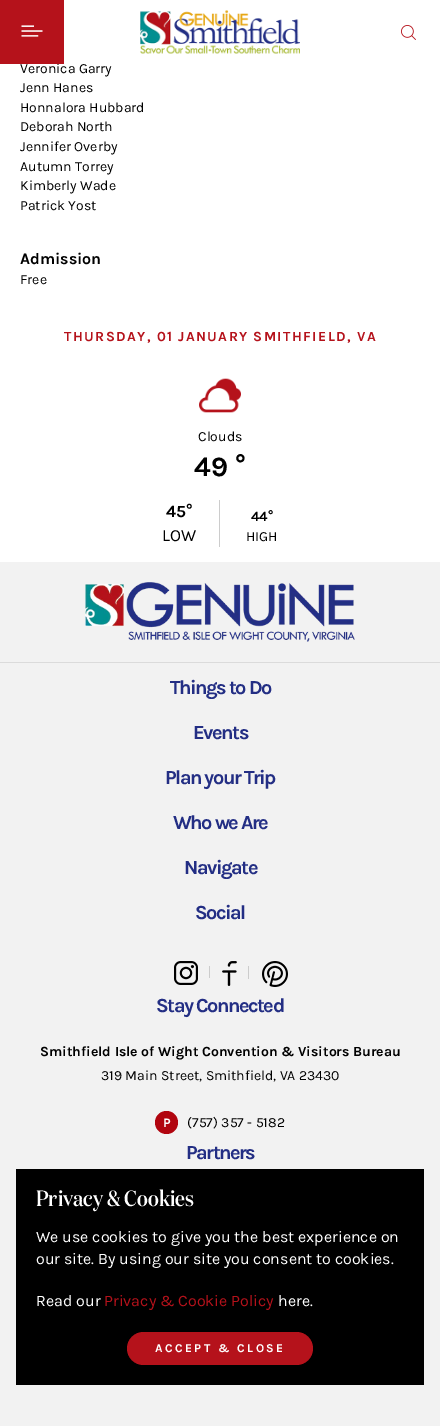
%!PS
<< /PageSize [440 1426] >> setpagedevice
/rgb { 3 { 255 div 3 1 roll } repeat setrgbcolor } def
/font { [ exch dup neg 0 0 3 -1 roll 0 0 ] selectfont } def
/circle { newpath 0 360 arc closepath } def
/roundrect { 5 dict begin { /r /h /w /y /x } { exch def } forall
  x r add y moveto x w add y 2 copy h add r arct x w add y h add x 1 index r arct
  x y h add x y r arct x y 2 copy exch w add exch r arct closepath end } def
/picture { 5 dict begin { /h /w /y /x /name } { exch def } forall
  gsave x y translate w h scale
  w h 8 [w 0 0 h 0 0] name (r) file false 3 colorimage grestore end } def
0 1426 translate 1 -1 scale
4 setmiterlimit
255 255 255 rgb
0 0 440 1426 rectfill
(img/2.rgb) 140 10 160 44 picture
(img/3.rgb) 401 25 15 15 picture
(img/4.rgb) 199 378 42 35 picture
[
  [219 500 1 47 204 204 204]
  [0 562 440 864 242 242 242]
  [0 662 440 1 219 219 219]
] { aload pop rgb rectfill } forall
(img/5.rgb) 85 582 270 60 picture
(img/6.rgb) 174 961 24 24 picture
204 204 204 rgb
209 966 1 12 rectfill
(img/7.rgb) 222 961 15 25 picture
248 966 1 13 rectfill
(img/8.rgb) 262 961 26 26 picture
177 5 15 rgb
166.5 1122.5 11.5 circle fill
0 0 0 rgb
16 1169 408 216 rectfill
181 18 27 rgb
127 1332 186 33 16.5 roundrect fill
/Karla-Regular 14 font
0 0 0 rgb
20 73 moveto (Veronica Garry) show
181 18 27 rgb
0 0 64 64 rectfill
(img/1.rgb) 21 25 22 12 picture
0 0 0 rgb
[
  [(Jenn Hanes) 20 92]
  [(Honnalora Hubbard) 20 112]
  [(Deborah North) 20 131]
  [(Jennifer Overby) 20 151]
  [(Autumn Torrey) 20 171]
  [(Kimberly Wade) 20 190]
  [(Patrick Yost) 20 210]
] { aload pop moveto show } forall
/Karla-Bold 16 font
20 264 moveto (Admission) show
/Karla-Regular 14 font
20 284 moveto (Free) show
/Karla-Bold 14 font
181 18 27 rgb
64 341 moveto 1.4 0 (THURSDAY, 01 JANUARY SMITHFIELD, VA) ashow
/Karla-Regular 14 font
0 0 0 rgb
198 441 moveto (Clouds) show
/Karla-Bold 28 font
194 476 moveto (49 °) show
/Karla-Bold 17 font
166 517 moveto (45°) show
/Karla-Regular 17 font
162 541 moveto (LOW) show
/Karla-Bold 14 font
251 521 moveto (44°) show
/Karla-Regular 14 font
246 541 moveto (HIGH) show
/Karla-Bold 20 font
35 46 132 rgb
170 694 moveto -1.5 0 (Things to Do) ashow
193 739 moveto -1.5 0 (Events) ashow
165 784 moveto -1.5 0 (Plan your Trip) ashow
173 829 moveto -1.5 0 (Who we Are) ashow
184 874 moveto -1.5 0 (Navigate) ashow
195 919 moveto -1.5 0 (Social) ashow
156 1012 moveto -1.5 0 (Stay Connected) ashow
/Karla-Bold 14 font
0 0 0 rgb
40 1056 moveto (Smithfield Isle of Wight Convention & Visitors Bureau) show
/Karla-Regular 14 font
101 1080 moveto (319 Main Street, Smithfield, VA 23430) show
/Karla-Bold 13 font
255 255 255 rgb
163 1127 moveto (P) show
/Karla-Regular 14 font
0 0 0 rgb
187 1127 moveto (\(757\) 357 - 5182) show
/Karla-Bold 20 font
35 46 132 rgb
186 1159 moveto -1.5 0 (Partners) ashow
/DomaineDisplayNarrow-Medium 22 font
255 255 255 rgb
36 1206 moveto (Privacy & Cookies) show
/Karla-Regular 16 font
[
  [(We use cookies to give you the best experience on) 36 1242]
  [(our site. By using our site you consent to cookies.) 36 1264]
  [(Read our) 36 1306]
] { aload pop moveto show } forall
181 18 27 rgb
104 1306 moveto (Privacy & Cookie Policy) show
255 255 255 rgb
278 1306 moveto (here.) show
/Karla-Bold 12 font
155 1352 moveto 2.4 0 (ACCEPT & CLOSE) ashow
showpage
